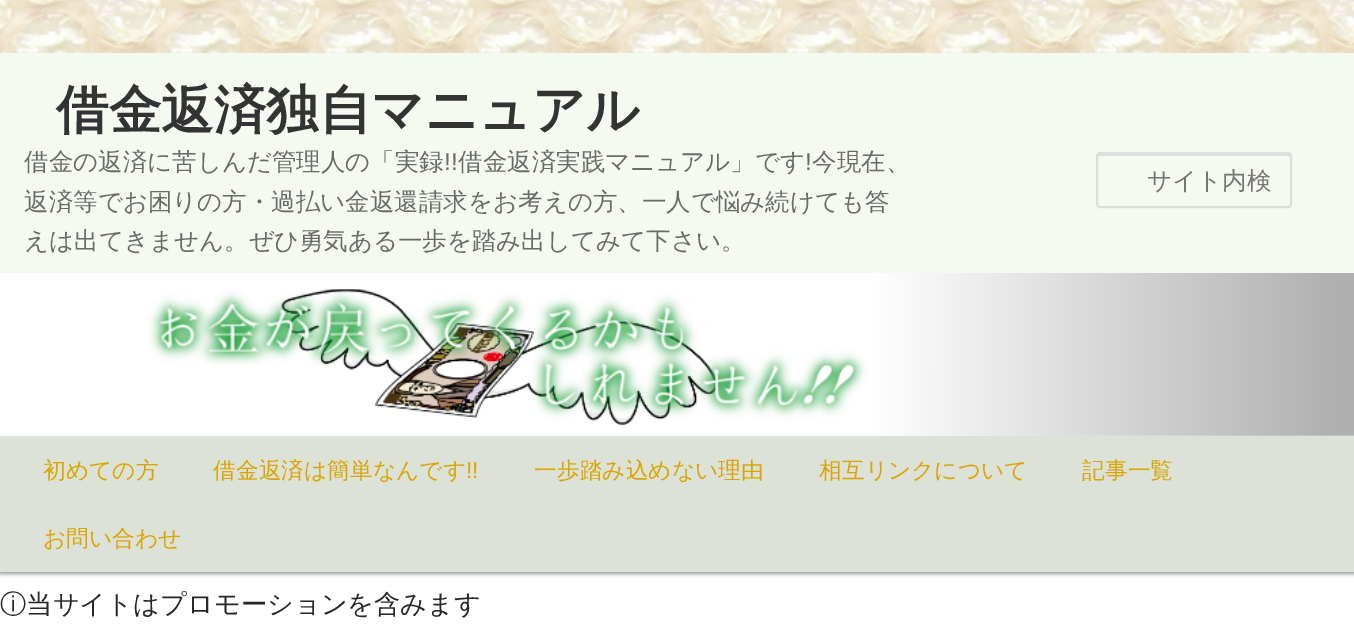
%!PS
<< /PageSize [1354 625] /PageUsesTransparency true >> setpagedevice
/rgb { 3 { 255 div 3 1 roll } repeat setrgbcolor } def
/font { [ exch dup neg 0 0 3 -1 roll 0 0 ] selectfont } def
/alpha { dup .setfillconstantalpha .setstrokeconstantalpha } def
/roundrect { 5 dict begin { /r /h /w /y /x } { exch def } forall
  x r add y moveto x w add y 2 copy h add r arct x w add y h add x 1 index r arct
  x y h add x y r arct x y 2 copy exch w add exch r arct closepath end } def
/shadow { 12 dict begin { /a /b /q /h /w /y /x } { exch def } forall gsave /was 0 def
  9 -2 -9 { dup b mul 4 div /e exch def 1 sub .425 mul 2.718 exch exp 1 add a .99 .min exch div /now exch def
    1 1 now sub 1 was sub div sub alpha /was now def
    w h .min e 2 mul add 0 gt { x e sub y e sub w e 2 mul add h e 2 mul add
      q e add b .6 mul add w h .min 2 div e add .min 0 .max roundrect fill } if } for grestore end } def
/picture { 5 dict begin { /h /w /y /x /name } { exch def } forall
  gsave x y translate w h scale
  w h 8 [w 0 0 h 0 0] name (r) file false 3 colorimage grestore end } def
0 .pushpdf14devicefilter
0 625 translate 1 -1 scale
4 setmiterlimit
255 255 255 rgb
0 0 1354 625 rectfill
(img/1.rgb) 0 0 1354 53 picture
245 250 241 rgb
0 53 1354 383 rectfill
221 225 217 rgb
1099 156 moveto 1288 156 lineto 1290 157 lineto 1290 158 lineto 1290 156 1290 154 1288 154 curveto 1099 154 lineto 1097 154 1097 156 1097 158 curveto 1097 157 1098 156 1099 156 curveto closepath fill
221 221 221 rgb
2 setlinewidth
1097 153 194 54 3 roundrect stroke
0 0 0 rgb
0 438 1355 136 0 2 0.4 shadow
(img/2.rgb) 0 273 1354 163 picture
220 226 216 rgb
0 436 1354 136 rectfill
/WenQuanYiZenHei-Bold 52.5 font
51 51 51 rgb
56 128 moveto (借金返済独自マニュアル) show
/WenQuanYiZenHei-Medium 24.5 font
106 106 106 rgb
24 170 moveto (借金の返済に苦しんだ管理人の「実録) show
/LiberationSans-Regular 24.5 font
444 170 moveto (!!) show
/WenQuanYiZenHei-Medium 24.5 font
458 170 moveto (借金返済実践マニュアル」です) show
/LiberationSans-Regular 24.5 font
805 170 moveto (!) show
/WenQuanYiZenHei-Medium 24.5 font
[
  [(今現在、) 812 170]
  [(返済等でお困りの方・過払い金返還請求をお考えの方、一人で悩み続けても答) 24 210]
  [(えは出てきません。ぜひ勇気ある一歩を踏み出してみて下さい。) 24 249]
] { aload pop moveto show } forall
117 117 117 rgb
1147 189 moveto (サイト内検) show
/WenQuanYiZenHei-Medium 22.75 font
219 164 0 rgb
43 478 moveto (初めての方) show
213 478 moveto (借金返済は簡単なんです) show
/LiberationSans-Regular 22.75 font
466 478 moveto (!!) show
/WenQuanYiZenHei-Medium 22.75 font
[
  [(一歩踏み込めない理由) 534 478]
  [(相互リンクについて) 819 478]
  [(記事一覧) 1082 478]
  [(お問い合わせ) 43 546]
] { aload pop moveto show } forall
/WenQuanYiZenHei-Medium 26.25 font
39 39 39 rgb
0 613 moveto (ⓘ当サイトはプロモーションを含みます) show
.poppdf14devicefilter showpage
